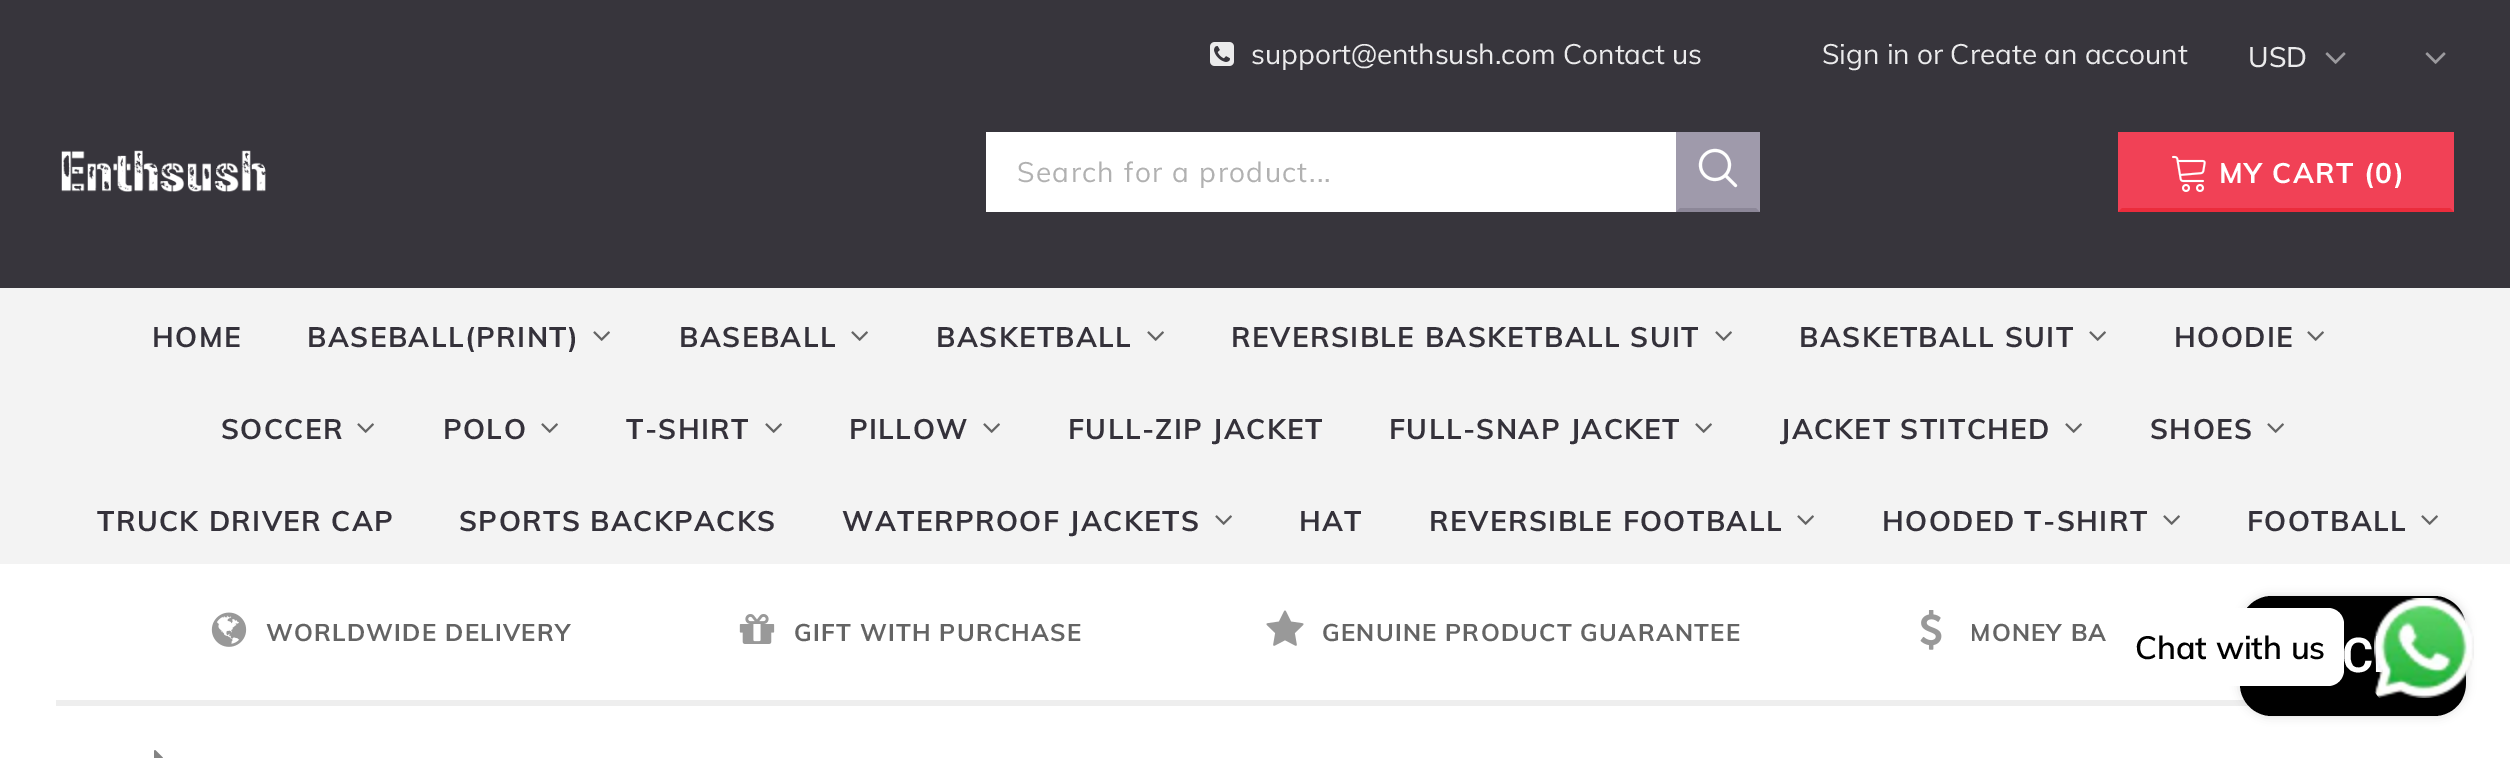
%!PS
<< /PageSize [2510 758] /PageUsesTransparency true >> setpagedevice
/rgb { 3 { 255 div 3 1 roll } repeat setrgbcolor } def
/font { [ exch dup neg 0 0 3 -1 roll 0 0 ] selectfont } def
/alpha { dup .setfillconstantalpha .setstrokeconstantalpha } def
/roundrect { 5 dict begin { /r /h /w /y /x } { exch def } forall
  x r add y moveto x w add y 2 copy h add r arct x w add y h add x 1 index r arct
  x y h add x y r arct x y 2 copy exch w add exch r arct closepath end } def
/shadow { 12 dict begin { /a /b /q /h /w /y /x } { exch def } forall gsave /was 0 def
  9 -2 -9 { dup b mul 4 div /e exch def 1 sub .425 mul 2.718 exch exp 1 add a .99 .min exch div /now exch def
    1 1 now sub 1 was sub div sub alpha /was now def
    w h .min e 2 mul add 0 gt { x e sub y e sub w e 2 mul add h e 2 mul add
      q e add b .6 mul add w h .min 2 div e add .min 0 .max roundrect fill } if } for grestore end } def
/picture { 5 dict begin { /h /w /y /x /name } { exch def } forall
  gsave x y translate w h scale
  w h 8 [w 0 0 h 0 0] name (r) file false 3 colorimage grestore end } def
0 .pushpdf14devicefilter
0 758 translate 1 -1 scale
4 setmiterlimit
255 255 255 rgb
0 0 2510 758 rectfill
55 53 60 rgb
0 0 2510 288 rectfill
(img/1.rgb) 1210 42 24 24 picture
(img/2.rgb) 2325 52 21 12 picture
(img/2.rgb) 2425 52 21 12 picture
(img/3.rgb) 61 150 205 42 picture
255 255 255 rgb
986 132 690 80 rectfill
159 154 171 rgb
1676 132 84 80 rectfill
140 135 152 rgb
1760 212 moveto 1676 212 lineto 1680 208 lineto 1756 208 lineto closepath fill
(img/4.rgb) 1698 148 40 40 picture
241 65 86 rgb
2118 132 336 80 rectfill
235 44 60 rgb
2454 212 moveto 2118 212 lineto 2122 208 lineto 2450 208 lineto closepath fill
(img/5.rgb) 2172 155 34 37 picture
243 243 243 rgb
0 288 2510 276 rectfill
(img/6.rgb) 593 331 17 10 picture
(img/6.rgb) 851 331 17 10 picture
(img/6.rgb) 1147 331 17 10 picture
(img/6.rgb) 1715 331 17 10 picture
(img/6.rgb) 2089 331 17 10 picture
(img/6.rgb) 2307 331 17 10 picture
(img/6.rgb) 357 423 17 10 picture
(img/6.rgb) 541 423 17 10 picture
(img/6.rgb) 765 423 17 10 picture
(img/6.rgb) 983 423 17 10 picture
(img/6.rgb) 1695 423 17 10 picture
(img/6.rgb) 2065 423 17 10 picture
(img/6.rgb) 2267 423 17 10 picture
(img/6.rgb) 1215 515 17 10 picture
(img/6.rgb) 1797 515 17 10 picture
(img/6.rgb) 2163 515 17 10 picture
(img/6.rgb) 2421 515 17 10 picture
238 238 238 rgb
56 700 2193 6 rectfill
(img/7.rgb) 211 612 36 35 picture
(img/8.rgb) 739 614 36 30 picture
(img/9.rgb) 1266 610 38 36 picture
(img/10.rgb) 1920 610 22 40 picture
0 0 0 rgb
2240 596 226 120 32 5 0.15 shadow
2240 596 226 120 32 roundrect fill
(img/11.rgb) 2374 598 100 100 picture
255 255 255 rgb
2114 608 230 78 16 roundrect fill
(img/12.rgb) 154 750 9 8 picture
/Muli-Regular 28 font
235 235 236 rgb
[
  [(support@enthsush.com Contact us) 1251 64]
  [(Sign in) 1822 64]
  [(or Create an account) 1917 64]
] { aload pop moveto show } forall
/Muli-Medium 28 font
2248 67 moveto (USD) show
/Muli-Regular 28 font
177 177 177 rgb
1017 182 moveto 1.4 0 (Search for a product...) ashow
/Muli-Bold 28 font
255 255 255 rgb
2219 183 moveto 1.4 0 (MY CART \(0\)) ashow
52 49 58 rgb
152 347 moveto 1.4 0 (HOME) ashow
307 347 moveto 1.4 0 (BASEBALL\(PRINT\)) ashow
679 347 moveto 1.4 0 (BASEBALL) ashow
936 347 moveto 1.4 0 (BASKETBALL) ashow
1231 347 moveto 1.4 0 (REVERSIBLE BASKETBALL SUIT) ashow
1799 347 moveto 1.4 0 (BASKETBALL SUIT) ashow
2174 347 moveto 1.4 0 (HOODIE) ashow
221 439 moveto 1.4 0 (SOCCER) ashow
443 439 moveto 1.4 0 (POLO) ashow
626 439 moveto 1.4 0 (T-SHIRT) ashow
849 439 moveto 1.4 0 (PILLOW) ashow
1068 439 moveto 1.4 0 (FULL-ZIP JACKET) ashow
1389 439 moveto 1.4 0 (FULL-SNAP JACKET) ashow
1780 439 moveto 1.4 0 (JACKET STITCHED) ashow
2150 439 moveto 1.4 0 (SHOES) ashow
97 531 moveto 1.4 0 (TRUCK DRIVER CAP) ashow
459 531 moveto 1.4 0 (SPORTS BACKPACKS) ashow
842 531 moveto 1.4 0 (WATERPROOF JACKETS) ashow
1299 531 moveto 1.4 0 (HAT) ashow
1429 531 moveto 1.4 0 (REVERSIBLE FOOTBALL) ashow
1882 531 moveto 1.4 0 (HOODED T-SHIRT) ashow
2247 531 moveto 1.4 0 (FOOTBALL) ashow
/Muli-Bold 24 font
100 100 100 rgb
266 641 moveto 1.2 0 (WORLDWIDE DELIVERY) ashow
794 641 moveto 1.2 0 (GIFT WITH PURCHASE) ashow
1322 641 moveto 1.2 0 (GENUINE PRODUCT GUARANTEE) ashow
1970 641 moveto 1.2 0 (MONEY BA) ashow
/Muli-SemiBold 32 font
0 0 0 rgb
2135 659 moveto (Chat with us) show
/Roboto-SemiBold 48 font
255 255 255 rgb
2342 672 moveto (C) show
.poppdf14devicefilter showpage
